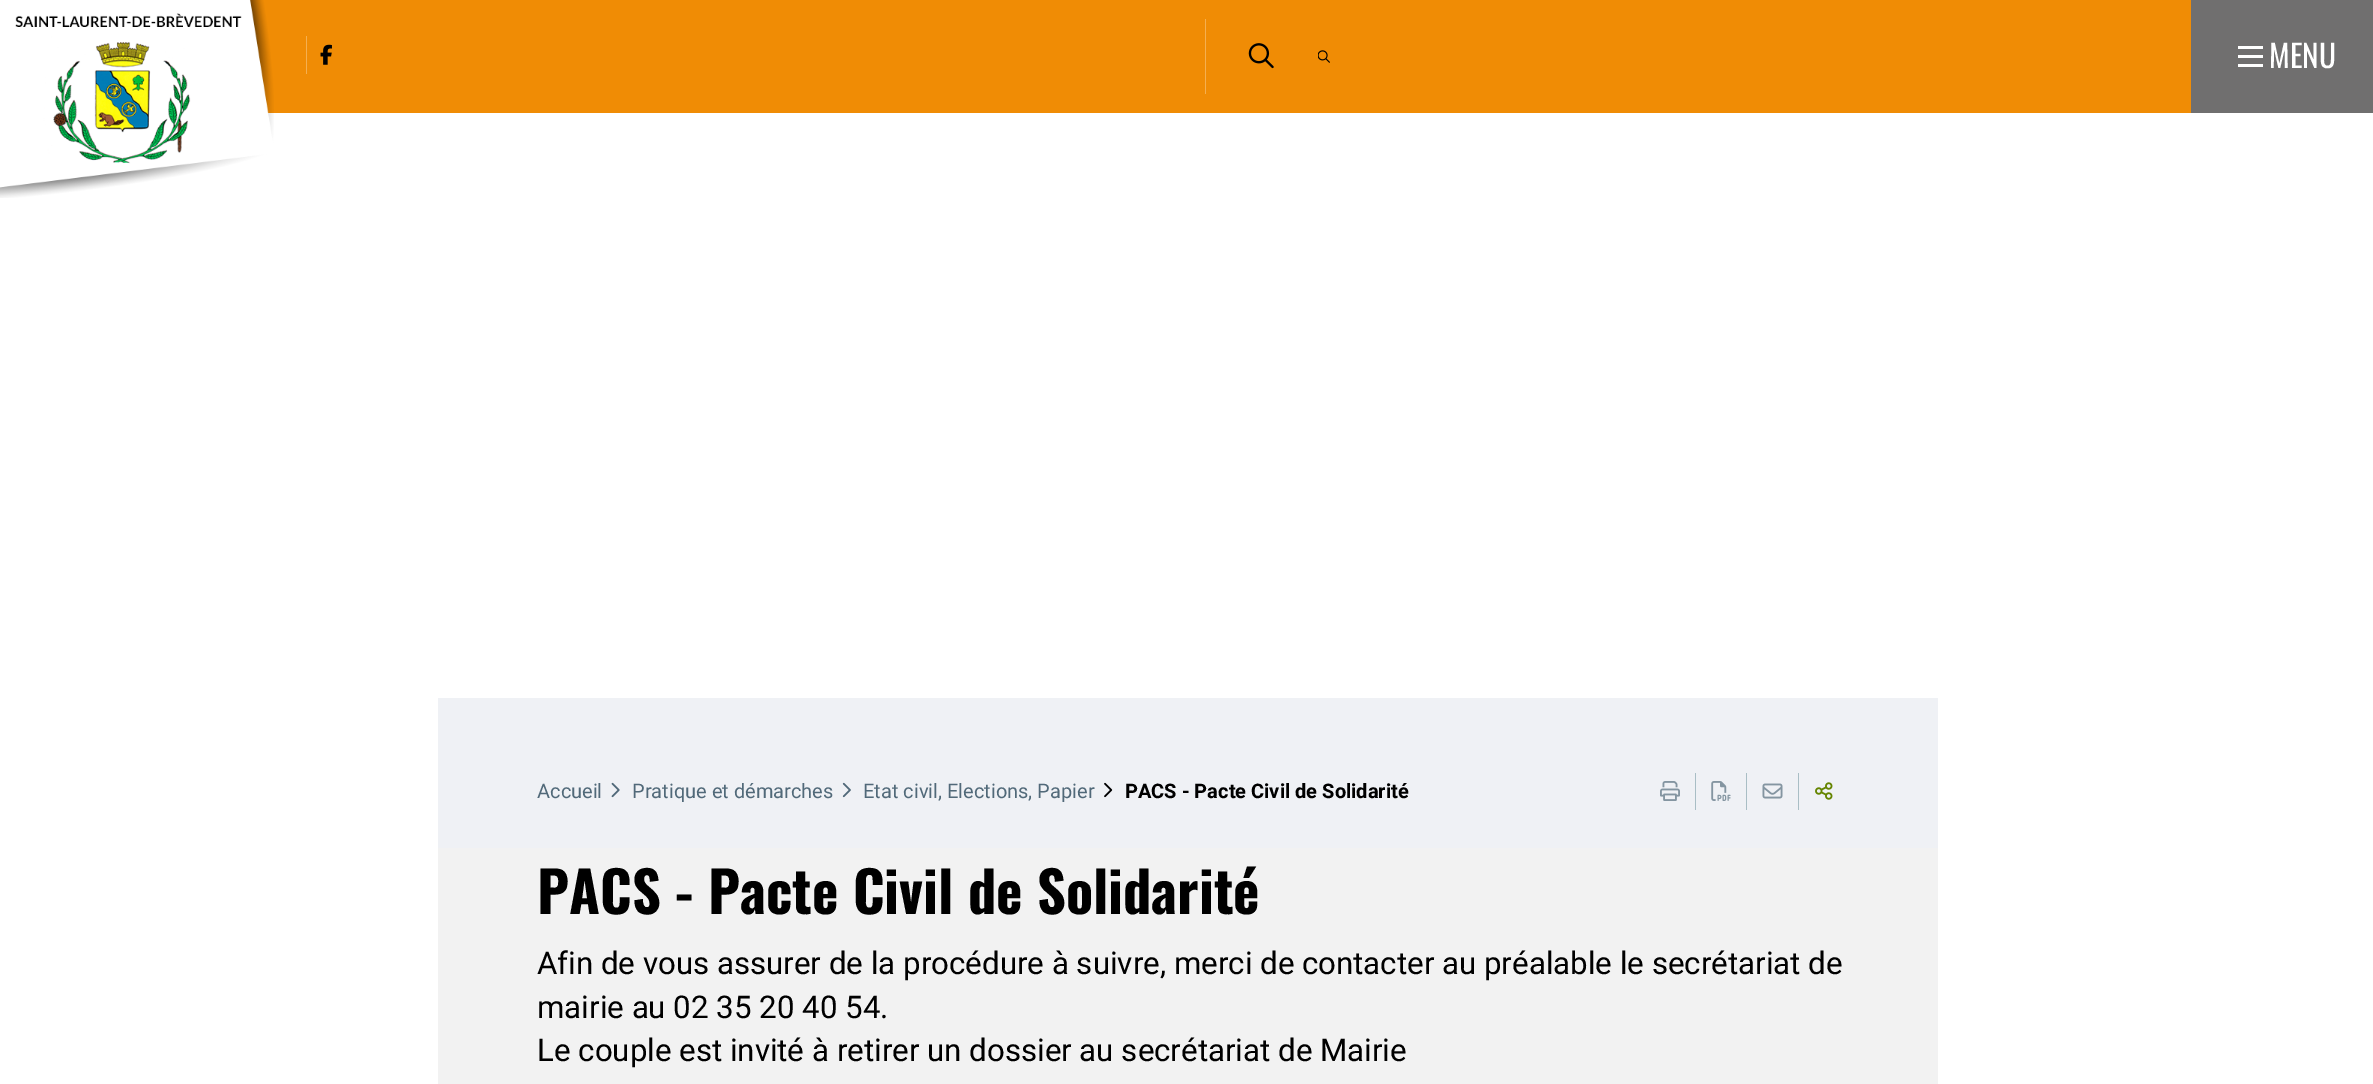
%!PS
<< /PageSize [2373 1084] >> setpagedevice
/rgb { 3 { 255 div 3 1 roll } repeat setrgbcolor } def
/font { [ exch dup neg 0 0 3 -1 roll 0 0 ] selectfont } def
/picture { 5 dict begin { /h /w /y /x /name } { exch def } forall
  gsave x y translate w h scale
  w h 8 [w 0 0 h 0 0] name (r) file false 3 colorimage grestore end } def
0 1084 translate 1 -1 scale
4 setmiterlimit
255 255 255 rgb
0 0 2373 1084 rectfill
240 140 5 rgb
249 0 1942 113 rectfill
(img/1.rgb) 0 0 274 198 picture
245 175 80 rgb
306 36 1 38 rectfill
(img/2.rgb) 320 44 12 21 picture
1205 19 1 75 rectfill
(img/3.rgb) 1248 43 26 26 picture
(img/4.rgb) 1318 50 12 13 picture
[
  [2191 0 182 113 112 111 111]
  [2238 46 25 3 255 255 255]
  [2238 55 25 3 255 255 255]
  [2238 64 25 3 255 255 255]
  [438 698 1500 150 239 241 245]
] { aload pop rgb rectfill } forall
(img/5.rgb) 611 782 9 16 picture
(img/6.rgb) 842 782 9 16 picture
(img/7.rgb) 1104 782 9 16 picture
(img/8.rgb) 1660 781 20 20 picture
169 190 197 rgb
1695 773 1 37 rectfill
(img/9.rgb) 1711 781 20 20 picture
1746 773 1 37 rectfill
(img/10.rgb) 1762 783 21 16 picture
1798 773 1 37 rectfill
(img/11.rgb) 1815 782 18 18 picture
242 242 242 rgb
438 848 1500 236 rectfill
/Oswald-Regular 31.25 font
255 255 255 rgb
2269 68 moveto (MENU) show
/Roboto-Regular 20 font
81 105 121 rgb
[
  [(Accueil) 537 798]
  [(Pratique et démarches) 632 798]
  [(Etat civil, Elections, Papier) 863 798]
] { aload pop moveto show } forall
/Roboto-Bold 20 font
0 0 0 rgb
1125 798 moveto (PACS - Pacte Civil de Solidarité) show
/Oswald-Bold 56.25 font
537 914 moveto (PACS - Pacte Civil de Solidarité) show
/Roboto-Regular 31.25 font
[
  [(Afin de vous assurer de la procédure à suivre, merci de contacter au préalable le secrétariat de) 537 974]
  [(mairie au 02 35 20 40 54.) 537 1018]
  [(Le couple est invité à retirer un dossier au secrétariat de Mairie) 537 1061]
] { aload pop moveto show } forall
showpage
